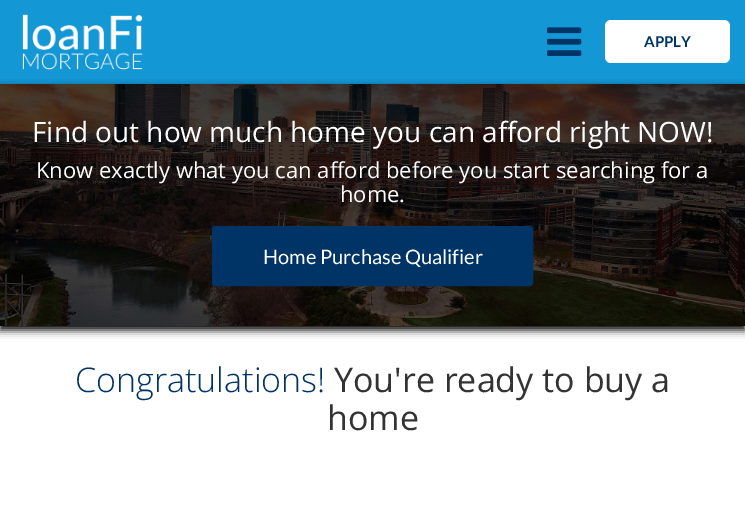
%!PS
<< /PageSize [745 518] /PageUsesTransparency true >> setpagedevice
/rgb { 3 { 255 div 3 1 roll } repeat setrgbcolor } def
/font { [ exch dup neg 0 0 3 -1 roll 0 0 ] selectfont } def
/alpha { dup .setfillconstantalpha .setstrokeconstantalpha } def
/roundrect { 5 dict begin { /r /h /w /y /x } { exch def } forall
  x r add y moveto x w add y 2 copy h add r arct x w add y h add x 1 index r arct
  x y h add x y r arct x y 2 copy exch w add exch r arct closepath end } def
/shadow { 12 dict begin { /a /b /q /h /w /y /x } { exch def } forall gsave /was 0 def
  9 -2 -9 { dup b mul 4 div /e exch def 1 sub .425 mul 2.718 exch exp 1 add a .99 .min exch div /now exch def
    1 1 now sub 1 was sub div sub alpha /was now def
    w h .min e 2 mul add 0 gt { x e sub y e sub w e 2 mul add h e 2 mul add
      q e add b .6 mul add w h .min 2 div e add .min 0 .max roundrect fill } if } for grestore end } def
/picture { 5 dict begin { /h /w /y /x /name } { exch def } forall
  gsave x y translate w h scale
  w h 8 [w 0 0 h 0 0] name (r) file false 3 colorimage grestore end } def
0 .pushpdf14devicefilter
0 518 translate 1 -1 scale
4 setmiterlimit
255 255 255 rgb
0 0 745 518 rectfill
19 151 213 rgb
0 0 745 84 rectfill
(img/1.rgb) 22 14 121 56 picture
(img/2.rgb) 547 27 35 29 picture
255 255 255 rgb
605 20 125 43 6 roundrect fill
0 0 0 rgb
0 88 745 242 0 4 1 shadow
(img/3.rgb) 0 84 745 242 picture
0 51 102 rgb
212.5 226.5 320 59 2.5 roundrect gsave fill grestore
stroke
/Lato-Bold 15 font
644 47 moveto (APPLY) show
/OpenSans-Regular 28 font
255 255 255 rgb
32 142 moveto (Find out how much home you can afford right NOW!) show
/OpenSans-Regular 22 font
36 178 moveto (Know exactly what you can afford before you start searching for a) show
340 202 moveto (home.) show
/Lato-Regular 20 font
263 264 moveto (Home Purchase Qualifier) show
/OpenSans-Light 34 font
0 51 102 rgb
75 392 moveto (Congratulations!) show
/OpenSans-Regular 34 font
51 51 51 rgb
334 392 moveto (You're ready to buy a) show
327 430 moveto (home) show
.poppdf14devicefilter showpage
